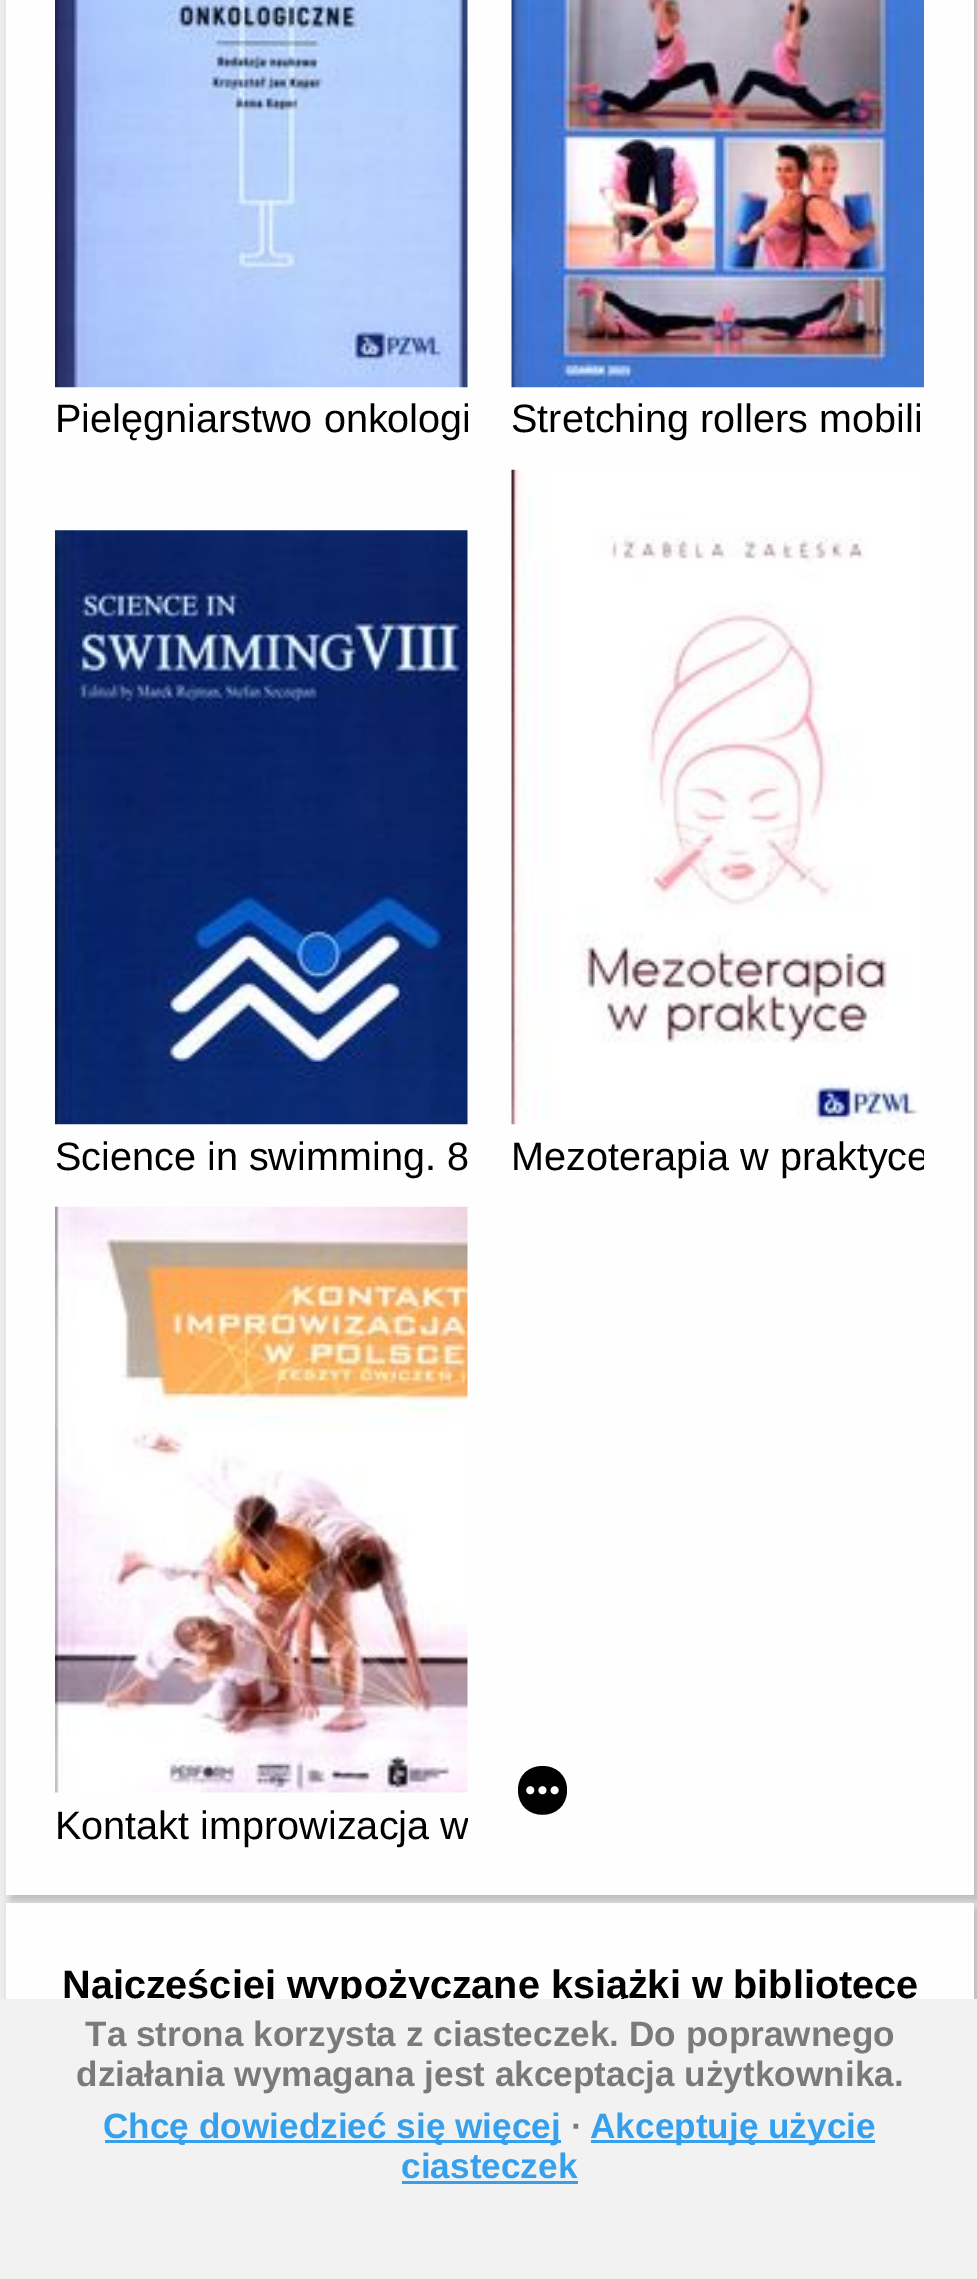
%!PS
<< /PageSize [977 2279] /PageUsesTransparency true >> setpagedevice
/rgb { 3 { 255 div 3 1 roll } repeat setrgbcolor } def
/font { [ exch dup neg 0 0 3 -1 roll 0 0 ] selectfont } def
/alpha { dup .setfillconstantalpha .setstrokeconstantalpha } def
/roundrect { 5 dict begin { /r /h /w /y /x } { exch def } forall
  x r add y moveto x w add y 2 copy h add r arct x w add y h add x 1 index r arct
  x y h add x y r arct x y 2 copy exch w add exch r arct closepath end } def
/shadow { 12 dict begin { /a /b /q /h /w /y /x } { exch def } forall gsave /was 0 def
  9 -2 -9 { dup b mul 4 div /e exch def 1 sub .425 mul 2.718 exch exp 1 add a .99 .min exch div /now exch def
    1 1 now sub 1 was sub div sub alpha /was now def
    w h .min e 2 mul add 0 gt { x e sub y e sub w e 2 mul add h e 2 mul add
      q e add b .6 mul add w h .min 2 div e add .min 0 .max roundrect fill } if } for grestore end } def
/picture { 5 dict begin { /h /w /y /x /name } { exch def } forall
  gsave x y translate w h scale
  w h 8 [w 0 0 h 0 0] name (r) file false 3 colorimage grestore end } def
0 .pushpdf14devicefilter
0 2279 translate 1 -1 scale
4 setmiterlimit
240 240 240 rgb
0 0 977 2279 rectfill
gsave
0 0 moveto 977 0 lineto 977 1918 lineto 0 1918 lineto closepath 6 -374 moveto 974 -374 lineto 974 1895 lineto 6 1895 lineto closepath eoclip newpath
0 0 0 rgb
11 -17 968 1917 0 5.5 0.25 shadow
grestore
0.95 alpha
255 255 255 rgb
6 0 968 1895 rectfill
1 alpha
(img/1.rgb) 55 0 413 388 picture
(img/2.rgb) 511 0 413 388 picture
(img/3.rgb) 55 530 413 595 picture
(img/4.rgb) 511 469 408 656 picture
0 0 0 rgb
518 1790 moveto 518 1758 567 1758 567 1790 curveto 567 1823 518 1823 518 1790 curveto closepath fill
(img/5.rgb) 526 1786 33 9 picture
(img/6.rgb) 55 1206 413 587 picture
gsave
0 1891 moveto 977 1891 lineto 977 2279 lineto 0 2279 lineto closepath 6 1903 moveto 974 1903 lineto 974 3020 lineto 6 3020 lineto closepath eoclip newpath
11 1909 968 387 0 5.5 0.25 shadow
grestore
0.95 alpha
255 255 255 rgb
6 1903 968 96 rectfill
gsave
55 396 413 58 rectclip
/LiberationSans-Regular 39.6 font
1 alpha
0 0 0 rgb
55 432 moveto (Pielęgniarstwo onkologi) show
grestore
/LiberationSans-Regular 39.6 font
1 alpha
0 0 0 rgb
511 432 moveto (Stretching rollers mobili) show
55 1170 moveto (Science in swimming. 8) show
gsave
512 1133 412 58 rectclip
511 1170 moveto (Mezoterapia w praktyce) show
grestore
gsave
55 1804 413 55 rectclip
55 1839 moveto (Kontakt improwizacja w) show
grestore
/LiberationSans-Bold 39.6 font
62 1998 moveto (Najczęściej wypożyczane książki w bibliotece) show
242 242 242 rgb
0 1999 977 280 rectfill
/LiberationSans-Bold 35.2 font
122 122 122 rgb
85 2046 moveto (Ta strona korzysta z ciasteczek. Do poprawnego) show
76 2086 moveto (działania wymagana jest akceptacja użytkownika.) show
54 160 236 rgb
105 2140 456 3 rectfill
103 2138 moveto (Chcę dowiedzieć się więcej) show
122 122 122 rgb
571 2138 moveto (∙) show
54 160 236 rgb
591 2140 284 3 rectfill
590 2138 moveto (Akceptuję użycie) show
401 2178 moveto (ciasteczek) show
402 2181 176 3 rectfill
.poppdf14devicefilter showpage
